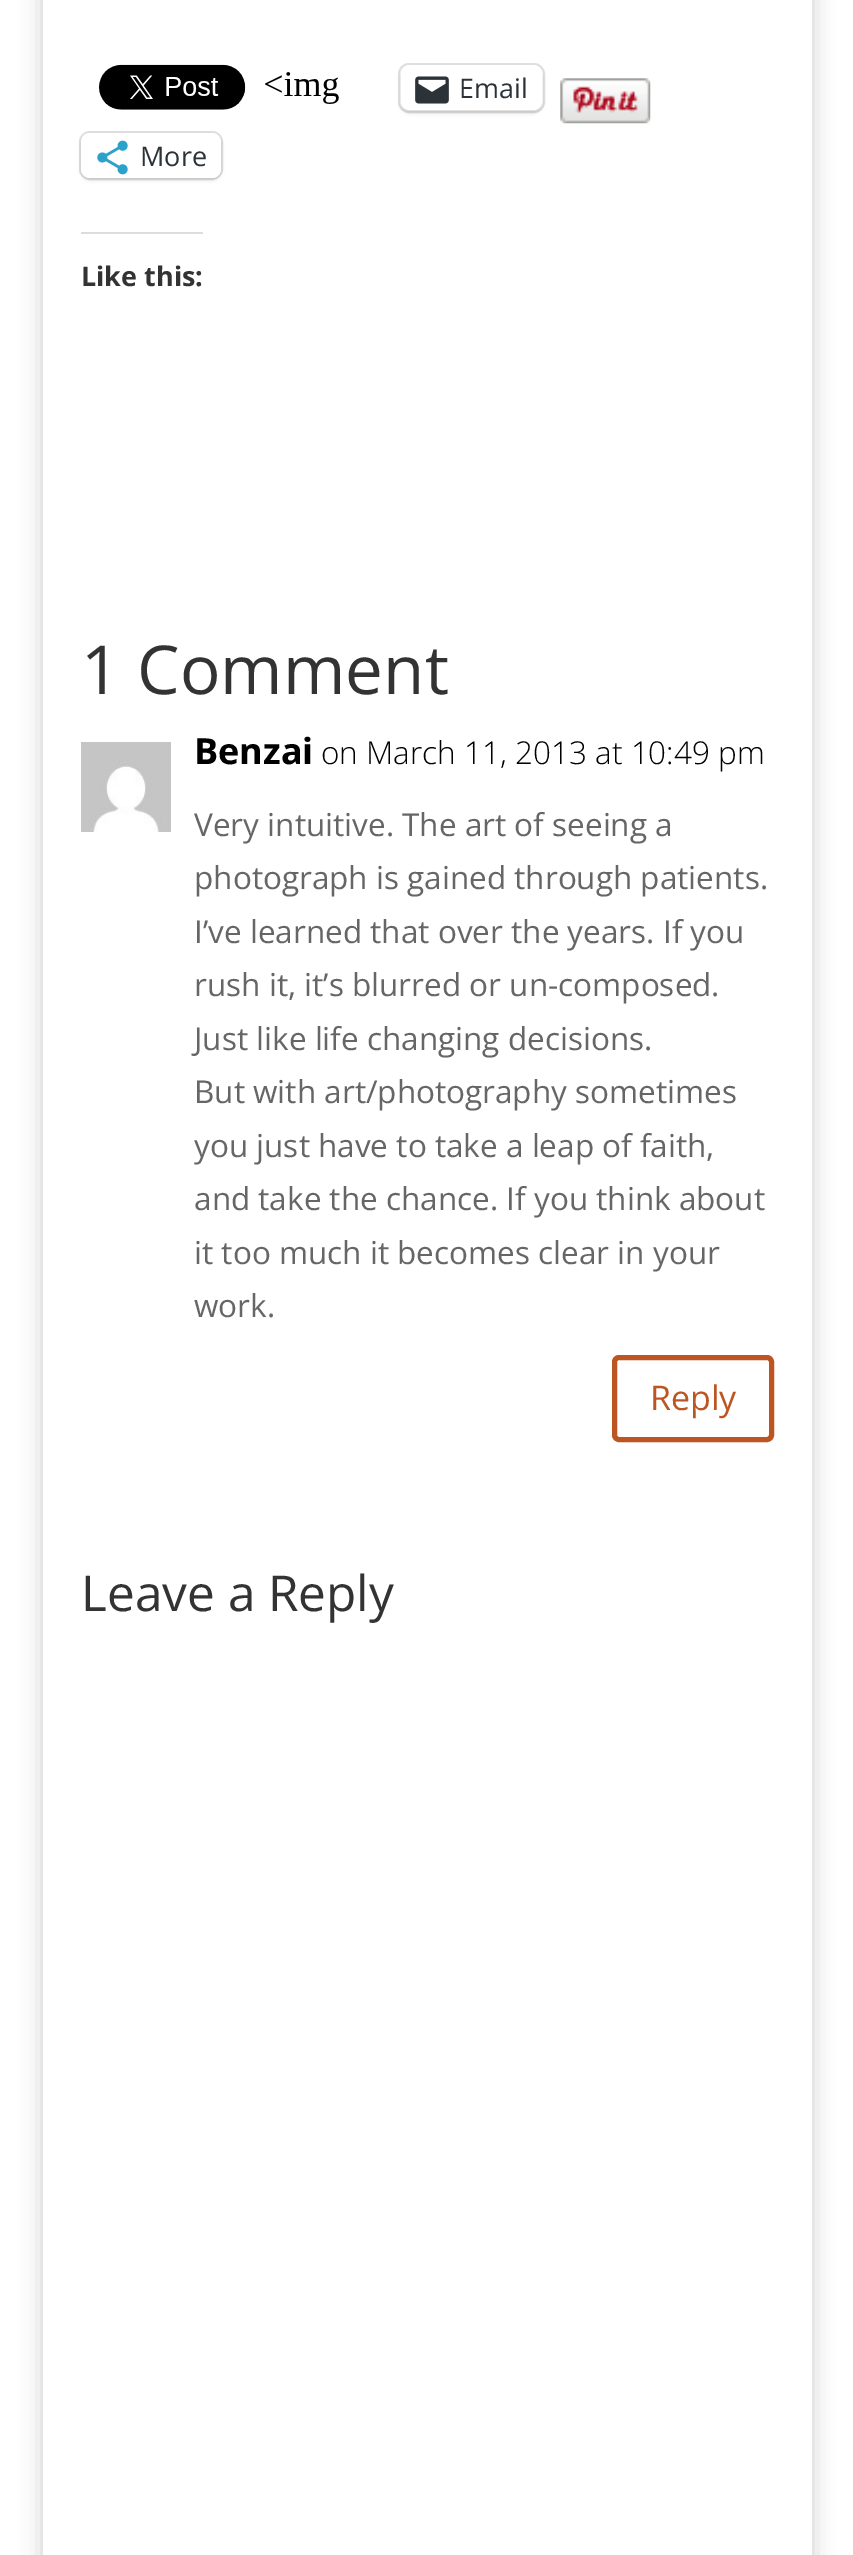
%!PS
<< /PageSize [853 2555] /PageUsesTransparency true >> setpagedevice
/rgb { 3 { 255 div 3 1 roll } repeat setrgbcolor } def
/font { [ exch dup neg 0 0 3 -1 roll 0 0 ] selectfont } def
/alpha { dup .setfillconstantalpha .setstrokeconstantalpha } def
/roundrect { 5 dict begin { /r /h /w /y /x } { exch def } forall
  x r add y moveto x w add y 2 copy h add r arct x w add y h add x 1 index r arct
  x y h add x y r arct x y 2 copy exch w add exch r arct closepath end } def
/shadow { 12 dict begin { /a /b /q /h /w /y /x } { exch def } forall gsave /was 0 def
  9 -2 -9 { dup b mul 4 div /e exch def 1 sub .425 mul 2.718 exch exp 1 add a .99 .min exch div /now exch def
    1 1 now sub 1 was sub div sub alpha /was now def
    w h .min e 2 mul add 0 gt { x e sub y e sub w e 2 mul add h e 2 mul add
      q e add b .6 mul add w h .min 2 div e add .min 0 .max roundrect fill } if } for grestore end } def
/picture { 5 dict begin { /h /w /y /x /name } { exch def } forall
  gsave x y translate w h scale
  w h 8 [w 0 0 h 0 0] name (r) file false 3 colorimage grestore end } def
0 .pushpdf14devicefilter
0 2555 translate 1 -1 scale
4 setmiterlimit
255 255 255 rgb
0 0 853 2555 rectfill
gsave
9 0 moveto 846 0 lineto 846 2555 lineto 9 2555 lineto closepath 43 -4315 moveto 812 -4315 lineto 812 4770 lineto 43 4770 lineto closepath eoclip newpath
0 0 0 rgb
43 -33 769 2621 0 11 0.2 shadow
grestore
(img/1.rgb) 99 64 147 46 picture
(img/2.rgb) 265 72 74 32 picture
224 224 224 rgb
2 setlinewidth
399 64 145 48 10 roundrect stroke
0 0 0 rgb
401 68 141 45 9 2 0.12 shadow
255 255 255 rgb
401 65 141 45 9 roundrect fill
(img/3.rgb) 415 76 34 28 picture
(img/4.rgb) 560 78 91 46 picture
224 224 224 rgb
80 132 142 47 10 roundrect stroke
0 0 0 rgb
81 135 140 45 9 2 0.12 shadow
255 255 255 rgb
81 133 140 45 9 roundrect fill
(img/5.rgb) 97 140 31 35 picture
220 220 222 rgb
81 232 122 2 rectfill
(img/6.rgb) 81 742 90 90 picture
188 85 33 rgb
5 setlinewidth
614.5 1357.5 157 82 4.5 roundrect stroke
/OpenSans-Regular 27 font
44 51 56 rgb
459 98 moveto (Email) show
140 166 moveto (More) show
/OpenSans-Bold 27 font
51 51 51 rgb
81 286 moveto (Like this:) show
/OpenSans-Regular 67.5 font
81 694 moveto (1 Comment) show
/OpenSans-Bold 36 font
0 0 0 rgb
194 764 moveto (Benzai) show
/OpenSans-Light 31.5 font
321 764 moveto (on March 11, 2013 at 10:49 pm) show
/OpenSans-Regular 31.5 font
102 102 102 rgb
[
  [(Very intuitive. The art of seeing a) 194 836]
  [(photograph is gained through patients.) 194 889]
  [(I’ve learned that over the years. If you) 194 943]
  [(rush it, it’s blurred or un-composed.) 194 996]
  [(Just like life changing decisions.) 194 1050]
  [(But with art/photography sometimes) 194 1103]
  [(you just have to take a leap of faith,) 194 1157]
  [(and take the chance. If you think about) 194 1210]
  [(it too much it becomes clear in your) 194 1264]
  [(work.) 194 1317]
] { aload pop moveto show } forall
/OpenSans-Regular 34 font
188 85 33 rgb
650 1410 moveto (Reply) show
/OpenSans-Regular 49.5 font
51 51 51 rgb
81 1611 moveto (Leave a Reply) show
.poppdf14devicefilter showpage
